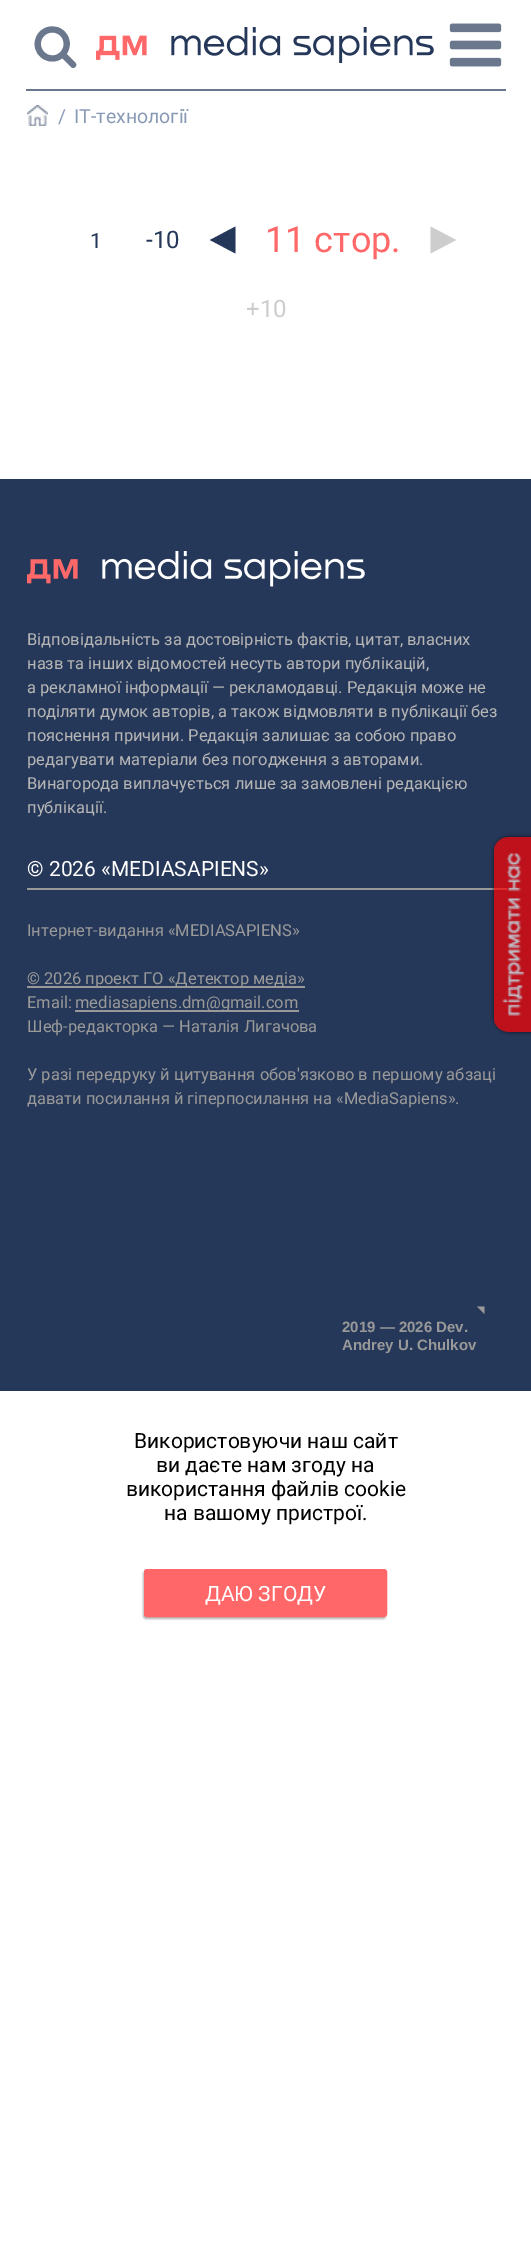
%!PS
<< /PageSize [531 2260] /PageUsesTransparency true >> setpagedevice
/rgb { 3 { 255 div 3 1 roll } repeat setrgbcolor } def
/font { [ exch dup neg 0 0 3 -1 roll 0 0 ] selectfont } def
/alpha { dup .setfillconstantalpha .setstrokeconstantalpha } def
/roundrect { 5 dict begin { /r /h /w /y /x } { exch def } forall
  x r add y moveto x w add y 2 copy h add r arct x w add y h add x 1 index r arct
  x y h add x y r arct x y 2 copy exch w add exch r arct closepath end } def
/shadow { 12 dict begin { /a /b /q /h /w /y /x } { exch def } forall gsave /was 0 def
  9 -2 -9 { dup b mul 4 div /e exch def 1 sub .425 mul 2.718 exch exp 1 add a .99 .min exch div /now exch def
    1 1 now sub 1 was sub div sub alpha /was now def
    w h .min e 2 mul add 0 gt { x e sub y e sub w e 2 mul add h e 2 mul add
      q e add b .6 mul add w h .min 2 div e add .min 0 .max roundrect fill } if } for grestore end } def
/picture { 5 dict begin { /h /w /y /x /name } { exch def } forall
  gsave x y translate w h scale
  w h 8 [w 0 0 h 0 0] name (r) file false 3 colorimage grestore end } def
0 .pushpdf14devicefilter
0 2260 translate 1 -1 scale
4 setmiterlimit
255 255 255 rgb
0 0 531 2260 rectfill
(img/1.rgb) 96 27 338 36 picture
(img/2.rgb) 449 23 53 44 picture
107 119 141 rgb
26 89 480 2 rectfill
(img/3.rgb) 27 105 21 21 picture
38 56 89 rgb
235.5 226.5 moveto 235.5 253.5 lineto 210 240 lineto closepath fill
205 205 205 rgb
430.5 253.5 moveto 430.5 226.5 lineto 456 240 lineto closepath fill
38 56 89 rgb
0 479 531 912 rectfill
(img/4.rgb) 27 551 338 36 picture
[
  [27 888 480 2 153 153 153]
  [27 986 278 2 153 153 153]
  [75 1010 224 2 153 153 153]
] { aload pop rgb rectfill } forall
gsave
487 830 moveto 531 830 lineto 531 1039 lineto 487 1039 lineto closepath 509 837 moveto 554 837 lineto 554 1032 lineto 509 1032 lineto 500.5 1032 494 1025.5 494 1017 curveto 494 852 lineto 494 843.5 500.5 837 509 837 curveto closepath eoclip newpath
0 0 0 rgb
494 837 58 195 15 2 0.7 shadow
grestore
(img/5.rgb) 494 837 37 195 picture
477 1306.5 moveto 484.5 1306.5 lineto 484.5 1314 lineto closepath fill
0 0 0 rgb
143 1571 243 48 3 1 0.3 shadow
255 103 104 rgb
145 1570 241 46 2 roundrect gsave fill grestore
2 setlinewidth
stroke
/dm-Regular 45 font
107 119 141 rgb
33 68 moveto (f) show
/Roboto-Regular 19.5 font
136 153 182 rgb
58 123 moveto (/) show
74 123 moveto (ІТ-технології) show
/Roboto-Regular 21 font
38 56 89 rgb
90 248 moveto (1) show
/Roboto-Regular 24 font
146 248 moveto (-10) show
/Roboto-Regular 36 font
255 103 104 rgb
265 252 moveto (11 стор.) show
/Roboto-Regular 24 font
205 205 205 rgb
246 317 moveto (+10) show
/Roboto-Regular 16.5 font
182 182 182 rgb
[
  [(Відповідальність за достовірність фактів, цитат, власних) 27 645]
  [(назв та інших відомостей несуть автори публікацій,) 27 669]
  [(а рекламної інформації — рекламодавці. Редакція може не) 27 693]
  [(поділяти думок авторів, а також відмовляти в публікації без) 27 717]
  [(пояснення причини. Редакція залишає за собою право) 27 741]
  [(редагувати матеріали без погодження з авторами.) 27 765]
  [(Винагорода виплачується лише за замовлені редакцією) 27 789]
  [(публікації.) 27 813]
] { aload pop moveto show } forall
/Roboto-Regular 21 font
255 255 255 rgb
27 876 moveto (© 2026 «MEDIASAPIENS») show
/Roboto-Regular 16.5 font
153 153 153 rgb
[
  [(Інтернет-видання «MEDIASAPIENS») 27 936]
  [(© 2026 проект ГО «Детектор медіа») 27 984]
  [(Email:) 27 1008]
  [(mediasapiens.dm@gmail.com) 75 1008]
  [(Шеф-редакторка — Наталія Лигачова) 27 1032]
  [(У разі передруку й цитування обов'язково в першому абзаці) 27 1080]
  [(давати посилання й гіперпосилання на «MediaSapiens».) 27 1104]
] { aload pop moveto show } forall
/LiberationSans-Bold 15 font
342 1332 moveto (2019 — 2026 Dev.) show
342 1350 moveto (Andrey U. Chulkov) show
/Roboto-Regular 21 font
0 0 0 rgb
[
  [(Використовуючи наш сайт) 134 1448]
  [(ви даєте нам згоду на) 156 1472]
  [(використання файлів cookie) 126 1496]
  [(на вашому пристрої.) 164 1520]
] { aload pop moveto show } forall
255 255 255 rgb
205 1601 moveto (ДАЮ ЗГОДУ) show
.poppdf14devicefilter showpage
